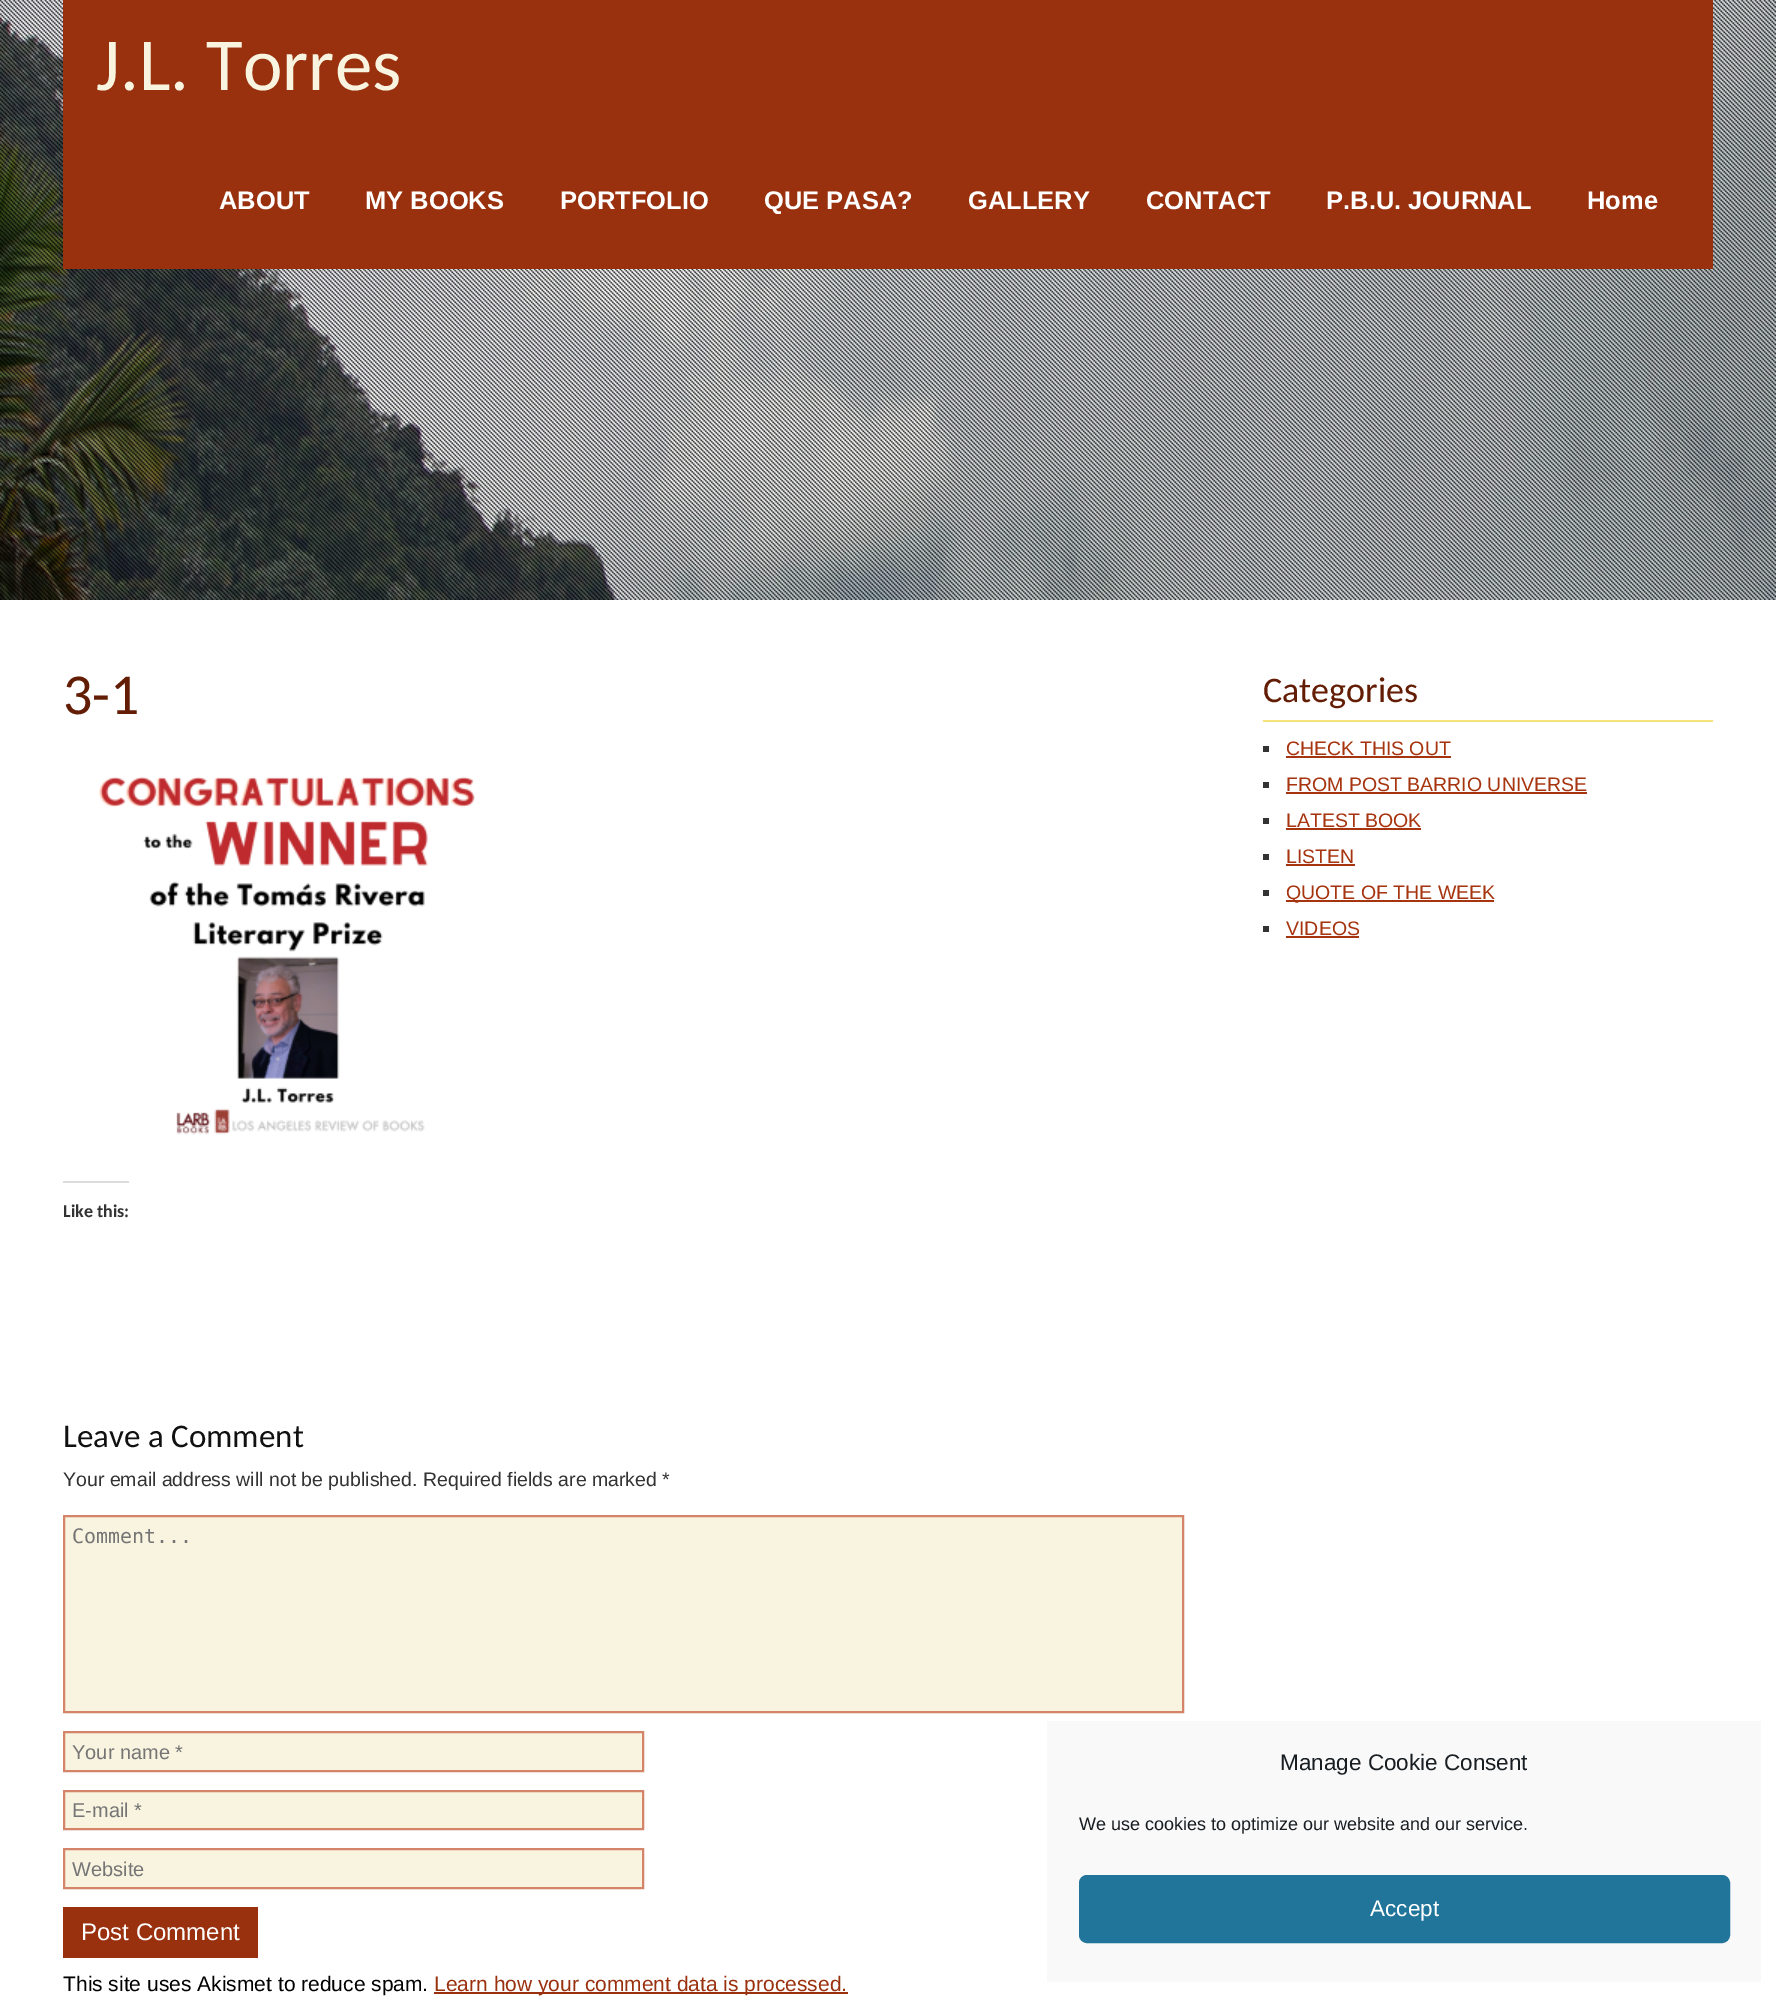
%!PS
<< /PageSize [1776 1996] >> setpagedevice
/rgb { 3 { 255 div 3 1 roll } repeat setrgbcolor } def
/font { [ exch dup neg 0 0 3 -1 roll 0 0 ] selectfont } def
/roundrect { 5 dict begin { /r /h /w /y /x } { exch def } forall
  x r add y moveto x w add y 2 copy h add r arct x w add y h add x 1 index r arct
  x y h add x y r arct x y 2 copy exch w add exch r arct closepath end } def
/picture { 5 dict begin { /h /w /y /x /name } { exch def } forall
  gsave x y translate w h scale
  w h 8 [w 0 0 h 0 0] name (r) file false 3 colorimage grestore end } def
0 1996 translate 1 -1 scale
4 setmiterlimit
255 255 255 rgb
0 0 1776 1996 rectfill
(img/1.rgb) 0 0 1776 600 picture
(img/2.rgb) 0 0 1776 600 picture
154 49 14 rgb
63 0 1650 269 rectfill
(img/3.rgb) 98 776 377 359 picture
220 220 222 rgb
63 1181 66 2 rectfill
249 244 224 rgb
64 1516 moveto 1183 1516 lineto 1183 1712 lineto 64 1712 lineto closepath gsave fill grestore
211 132 105 rgb
2 setlinewidth
stroke
249 244 224 rgb
64 1732 moveto 643 1732 lineto 643 1771 lineto 64 1771 lineto closepath gsave fill grestore
211 132 105 rgb
stroke
249 244 224 rgb
64 1791 moveto 643 1791 lineto 643 1829 lineto 64 1829 lineto closepath gsave fill grestore
211 132 105 rgb
stroke
249 244 224 rgb
64 1849 moveto 643 1849 lineto 643 1888 lineto 64 1888 lineto closepath gsave fill grestore
211 132 105 rgb
stroke
[
  [63 1907 195 51 154 49 14]
  [434 1992 414 2 154 49 14]
  [1263 720 450 2 247 226 123]
  [1263 746 6 6 51 51 51]
  [1286 756 165 2 166 53 15]
  [1263 782 6 6 51 51 51]
  [1286 792 301 2 166 53 15]
  [1263 818 6 6 51 51 51]
  [1286 828 135 2 166 53 15]
  [1263 854 6 6 51 51 51]
  [1286 864 69 2 166 53 15]
  [1263 890 6 6 51 51 51]
  [1286 900 208 2 166 53 15]
  [1263 926 6 6 51 51 51]
  [1286 936 73 2 166 53 15]
  [1047 1721 714 261 249 249 249]
] { aload pop rgb rectfill } forall
33 117 155 rgb
1080 1876 649 66 7 roundrect gsave fill grestore
stroke
/Carlito-Regular 75 font
249 244 224 rgb
96 90 moveto (J.L. Torres) show
/LiberationSans-Bold 25.5 font
255 255 255 rgb
[
  [(ABOUT) 219 209]
  [(MY BOOKS) 365 209]
  [(PORTFOLIO) 560 209]
  [(QUE PASA?) 764 209]
  [(GALLERY) 968 209]
  [(CONTACT) 1146 209]
  [(P.B.U. JOURNAL) 1326 209]
  [(Home) 1587 209]
] { aload pop moveto show } forall
/Carlito-Regular 58 font
100 29 5 rgb
63 714 moveto (3-1) show
/Carlito-Bold 18 font
51 51 51 rgb
63 1217 moveto (Like this:) show
/Carlito-Regular 33 font
17 17 17 rgb
63 1447 moveto (Leave a Comment) show
/LiberationSans-Regular 19.5 font
51 51 51 rgb
63 1486 moveto (Your email address will not be published. Required fields are marked *) show
/DejaVuSansMono-Regular 20 font
117 117 117 rgb
72 1543 moveto (Comment...) show
/LiberationSans-Regular 20 font
[
  [(Your name *) 72 1759]
  [(E-mail *) 72 1817]
  [(Website) 72 1876]
] { aload pop moveto show } forall
/LiberationSans-Regular 24 font
255 255 255 rgb
81 1940 moveto (Post Comment) show
/LiberationSans-Regular 21 font
0 0 0 rgb
63 1991 moveto (This site uses Akismet to reduce spam.) show
154 49 14 rgb
434 1991 moveto (Learn how your comment data is processed.) show
/Carlito-Regular 36 font
100 29 5 rgb
1263 702 moveto (Categories) show
/LiberationSans-Regular 19.5 font
166 53 15 rgb
[
  [(CHECK THIS OUT) 1286 755]
  [(FROM POST BARRIO UNIVERSE) 1286 791]
  [(LATEST BOOK) 1286 827]
  [(LISTEN) 1286 863]
  [(QUOTE OF THE WEEK) 1286 899]
  [(VIDEOS) 1286 935]
] { aload pop moveto show } forall
/LiberationSans-Regular 22.5 font
25 30 35 rgb
1280 1770 moveto (Manage Cookie Consent) show
/LiberationSans-Regular 18 font
1079 1830 moveto (We use cookies to optimize our website and our service.) show
/LiberationSans-Regular 22.5 font
255 255 255 rgb
1370 1916 moveto (Accept) show
showpage
